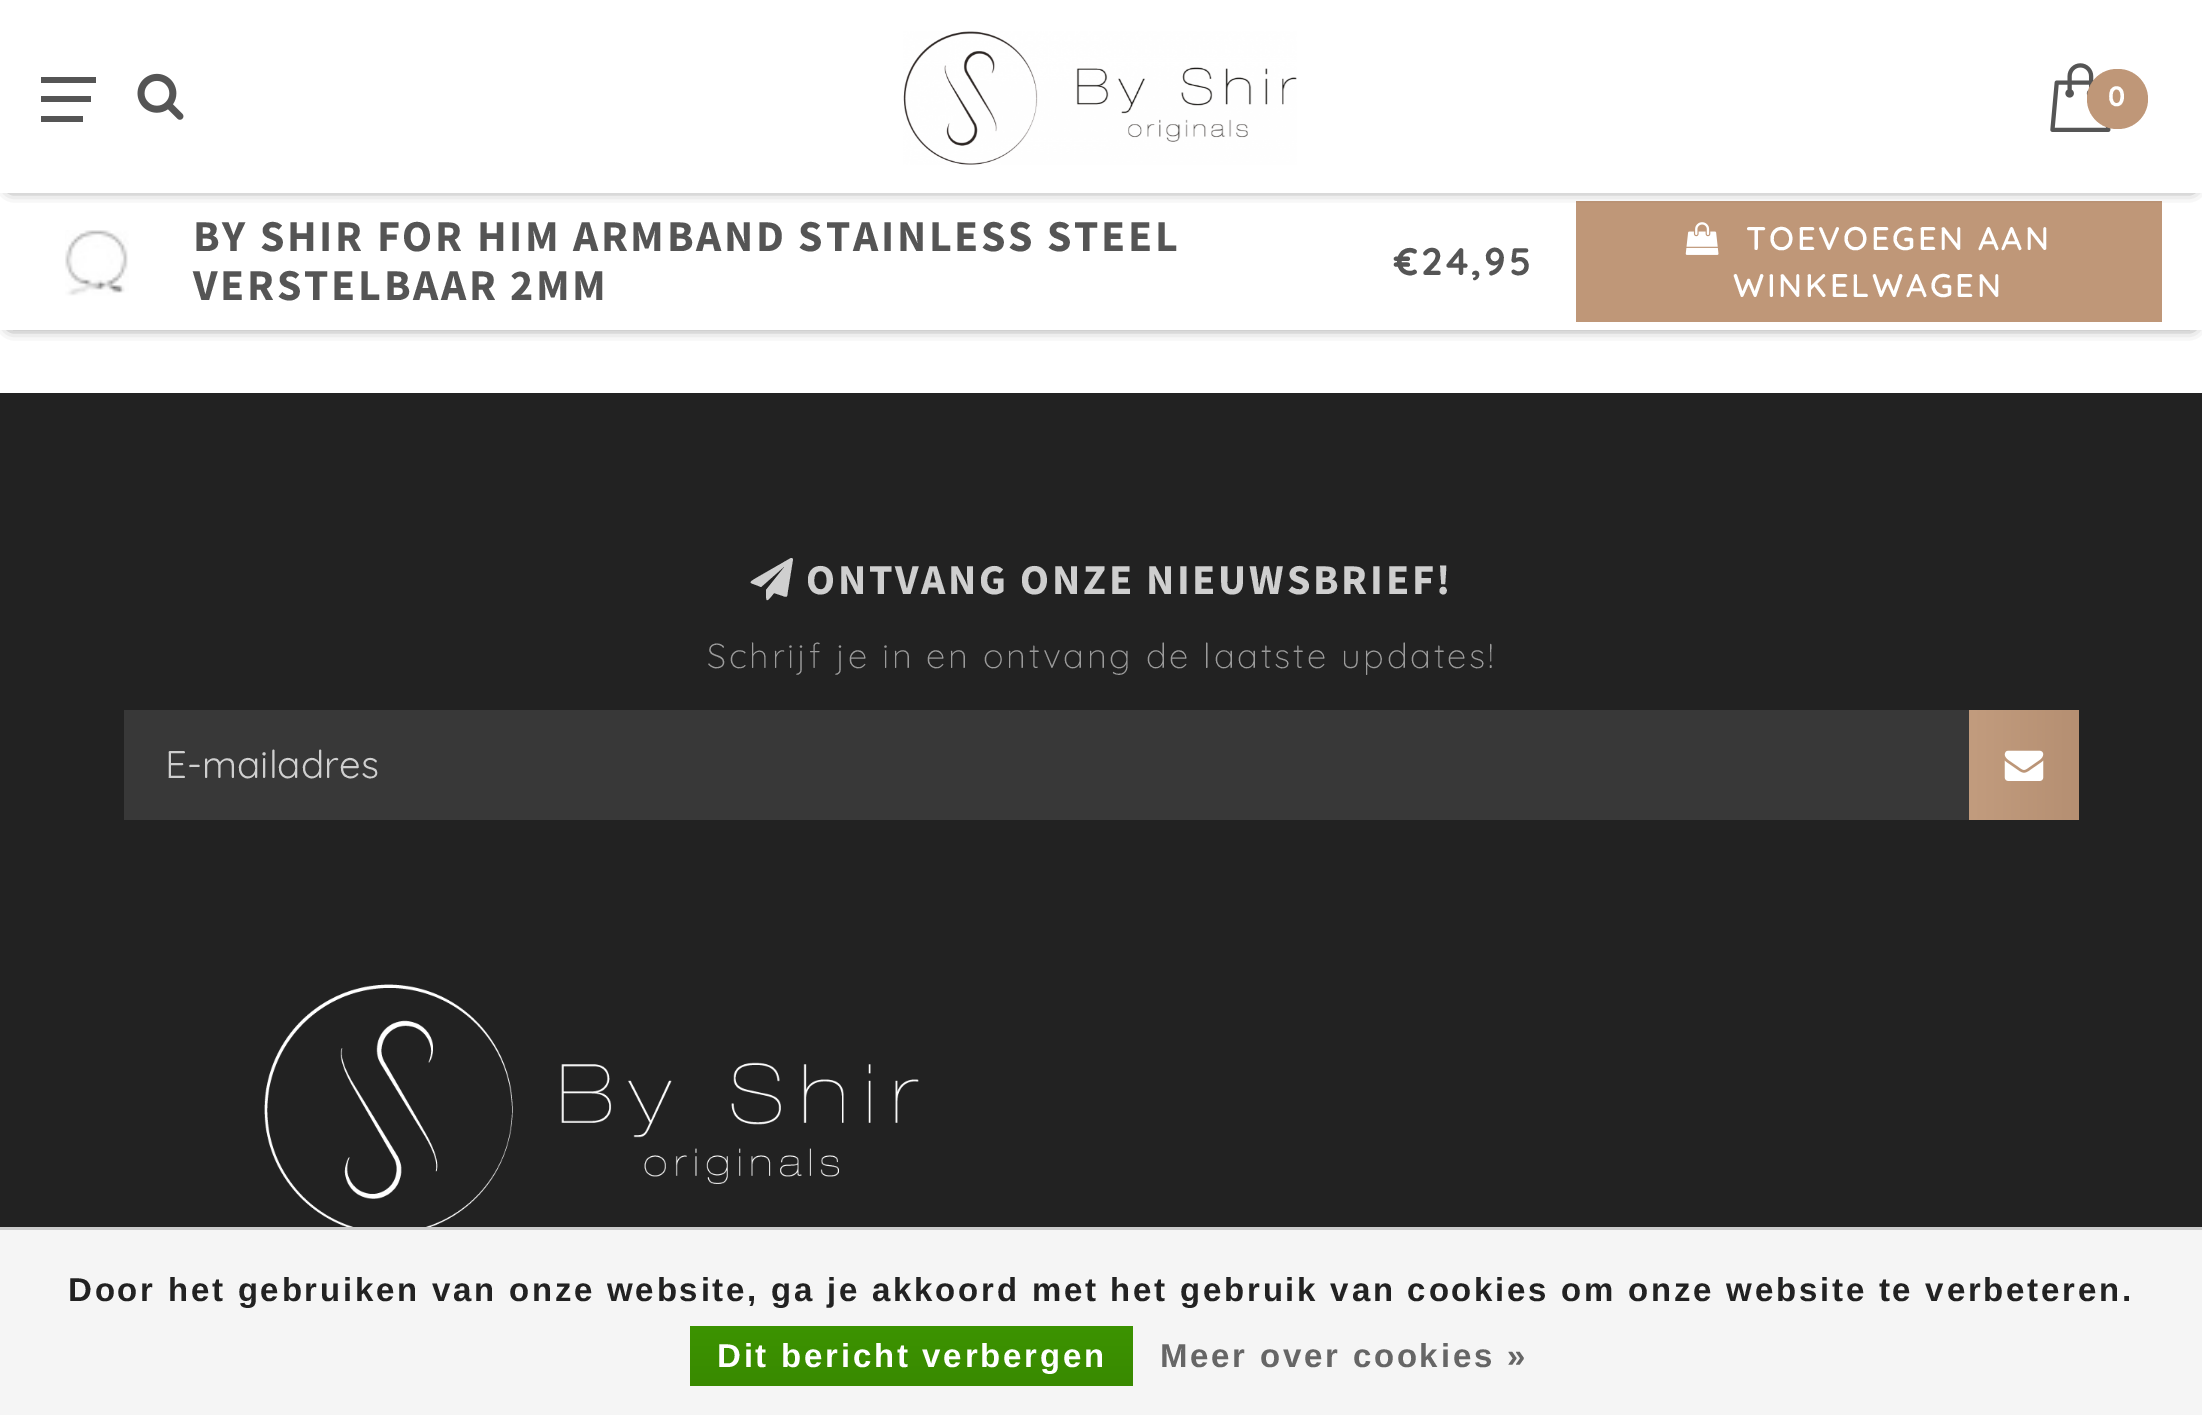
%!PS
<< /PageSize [2202 1415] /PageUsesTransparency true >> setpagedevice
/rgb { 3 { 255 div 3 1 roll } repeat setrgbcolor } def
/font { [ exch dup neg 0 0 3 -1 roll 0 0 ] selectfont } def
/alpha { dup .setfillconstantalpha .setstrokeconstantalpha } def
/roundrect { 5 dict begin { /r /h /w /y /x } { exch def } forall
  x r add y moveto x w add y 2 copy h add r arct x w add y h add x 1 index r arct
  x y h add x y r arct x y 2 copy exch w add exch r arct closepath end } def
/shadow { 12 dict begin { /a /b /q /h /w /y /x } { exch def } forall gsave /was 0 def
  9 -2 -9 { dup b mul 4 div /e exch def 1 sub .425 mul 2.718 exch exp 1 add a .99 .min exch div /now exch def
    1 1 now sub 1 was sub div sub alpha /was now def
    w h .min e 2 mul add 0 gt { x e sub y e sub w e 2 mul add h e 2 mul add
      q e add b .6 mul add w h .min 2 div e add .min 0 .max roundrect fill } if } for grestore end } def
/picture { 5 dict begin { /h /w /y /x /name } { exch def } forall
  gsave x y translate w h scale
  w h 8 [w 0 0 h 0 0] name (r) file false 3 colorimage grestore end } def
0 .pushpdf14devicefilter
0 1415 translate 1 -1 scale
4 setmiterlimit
255 255 255 rgb
0 0 2202 1415 rectfill
0 0 0 rgb
11 209 2181 116 0 7 1 shadow
255 255 255 rgb
0 193 2202 137 rectfill
191 151 120 rgb
1576 201 586 121 rectfill
0 0 0 rgb
11 17 2181 170 0 7 1 shadow
[
  [0 1 2202 192 255 255 255]
  [41 77 55 6 85 85 85]
  [41 96 50 6 85 85 85]
  [41 116 42 6 85 85 85]
] { aload pop rgb rectfill } forall
(img/1.rgb) 137 73 47 47 picture
(img/2.rgb) 903 31 394 134 picture
(img/3.rgb) 2050 63 61 69 picture
191 151 120 rgb
2087 69 61 60 30 roundrect fill
(img/4.rgb) 65 230 64 66 picture
(img/5.rgb) 1685 222 34 33 picture
34 34 34 rgb
0 393 2202 834 rectfill
207 207 207 rgb
792 558 moveto 793 559 lineto 788 590 lineto 787 596 788 598 783 596 curveto 774 593 lineto 766 603 766 603 766 590 curveto 786 565 lineto 761 587 lineto 750 582 746 584 758 577 curveto 791 558 lineto closepath fill
56 56 56 rgb
124 710 1845 110 rectfill
gsave 1969 710 moveto 2079 710 lineto 2079 820 lineto 1969 820 lineto closepath clip newpath
<< /ShadingType 2 /ColorSpace /DeviceRGB /Coords [1969 765 2079 765] /Extend [true true] /Function << /FunctionType 2 /Domain [0 1] /C0 [0.761 0.612 0.494] /C1 [0.71 0.561 0.447] /N 1 >> >> shfill grestore
(img/6.rgb) 2004 750 40 31 picture
(img/7.rgb) 264 984 655 243 picture
245 245 245 rgb
0 1230 2202 185 rectfill
204 204 204 rgb
0 1227 2202 3 rectfill
gsave 690 1326 moveto 1133 1326 lineto 1133 1386 lineto 690 1386 lineto closepath clip newpath
<< /ShadingType 2 /ColorSpace /DeviceRGB /Coords [912 1326 912 1386] /Extend [true true] /Function << /FunctionType 2 /Domain [0 1] /C0 [0.235 0.576 0] /C1 [0.224 0.541 0] /N 1 >> >> shfill grestore
/Quicksand-Bold 28 font
255 255 255 rgb
2108 106 moveto 2.75 0 (0) ashow
/SourceSansPro-Bold 44 font
85 85 85 rgb
193 251 moveto 2.75 0 (BY SHIR FOR HIM ARMBAND STAINLESS STEEL) ashow
193 300 moveto 2.75 0 (VERSTELBAAR 2MM) ashow
/Quicksand-Bold 38.5 font
1394 275 moveto 2.75 0 (€24,95) ashow
/Quicksand-SemiBold 32.75 font
255 255 255 rgb
1746 250 moveto 2.75 0 (TOEVOEGEN AAN) ashow
1733 297 moveto 2.75 0 (WINKELWAGEN) ashow
/SourceSansPro-Bold 42.4 font
207 207 207 rgb
806 594 moveto 2.75 0 (ONTVANG ONZE NIEUWSBRIEF!) ashow
/Quicksand-Light 34.65 font
155 155 155 rgb
707 668 moveto 2.75 0 (Schrijf je in en ontvang de laatste updates!) ashow
/Quicksand-Regular 38.5 font
207 207 207 rgb
165 778 moveto (E-mailadres) show
/LiberationSans-Bold 33 font
34 34 34 rgb
68 1301 moveto 2.75 0 (Door het gebruiken van onze website, ga je akkoord met het gebruik van cookies om onze website te verbeteren.) ashow
255 255 255 rgb
717 1367 moveto 2.75 0 (Dit bericht verbergen) ashow
102 102 102 rgb
1160 1367 moveto 2.75 0 (Meer over cookies ») ashow
.poppdf14devicefilter showpage
